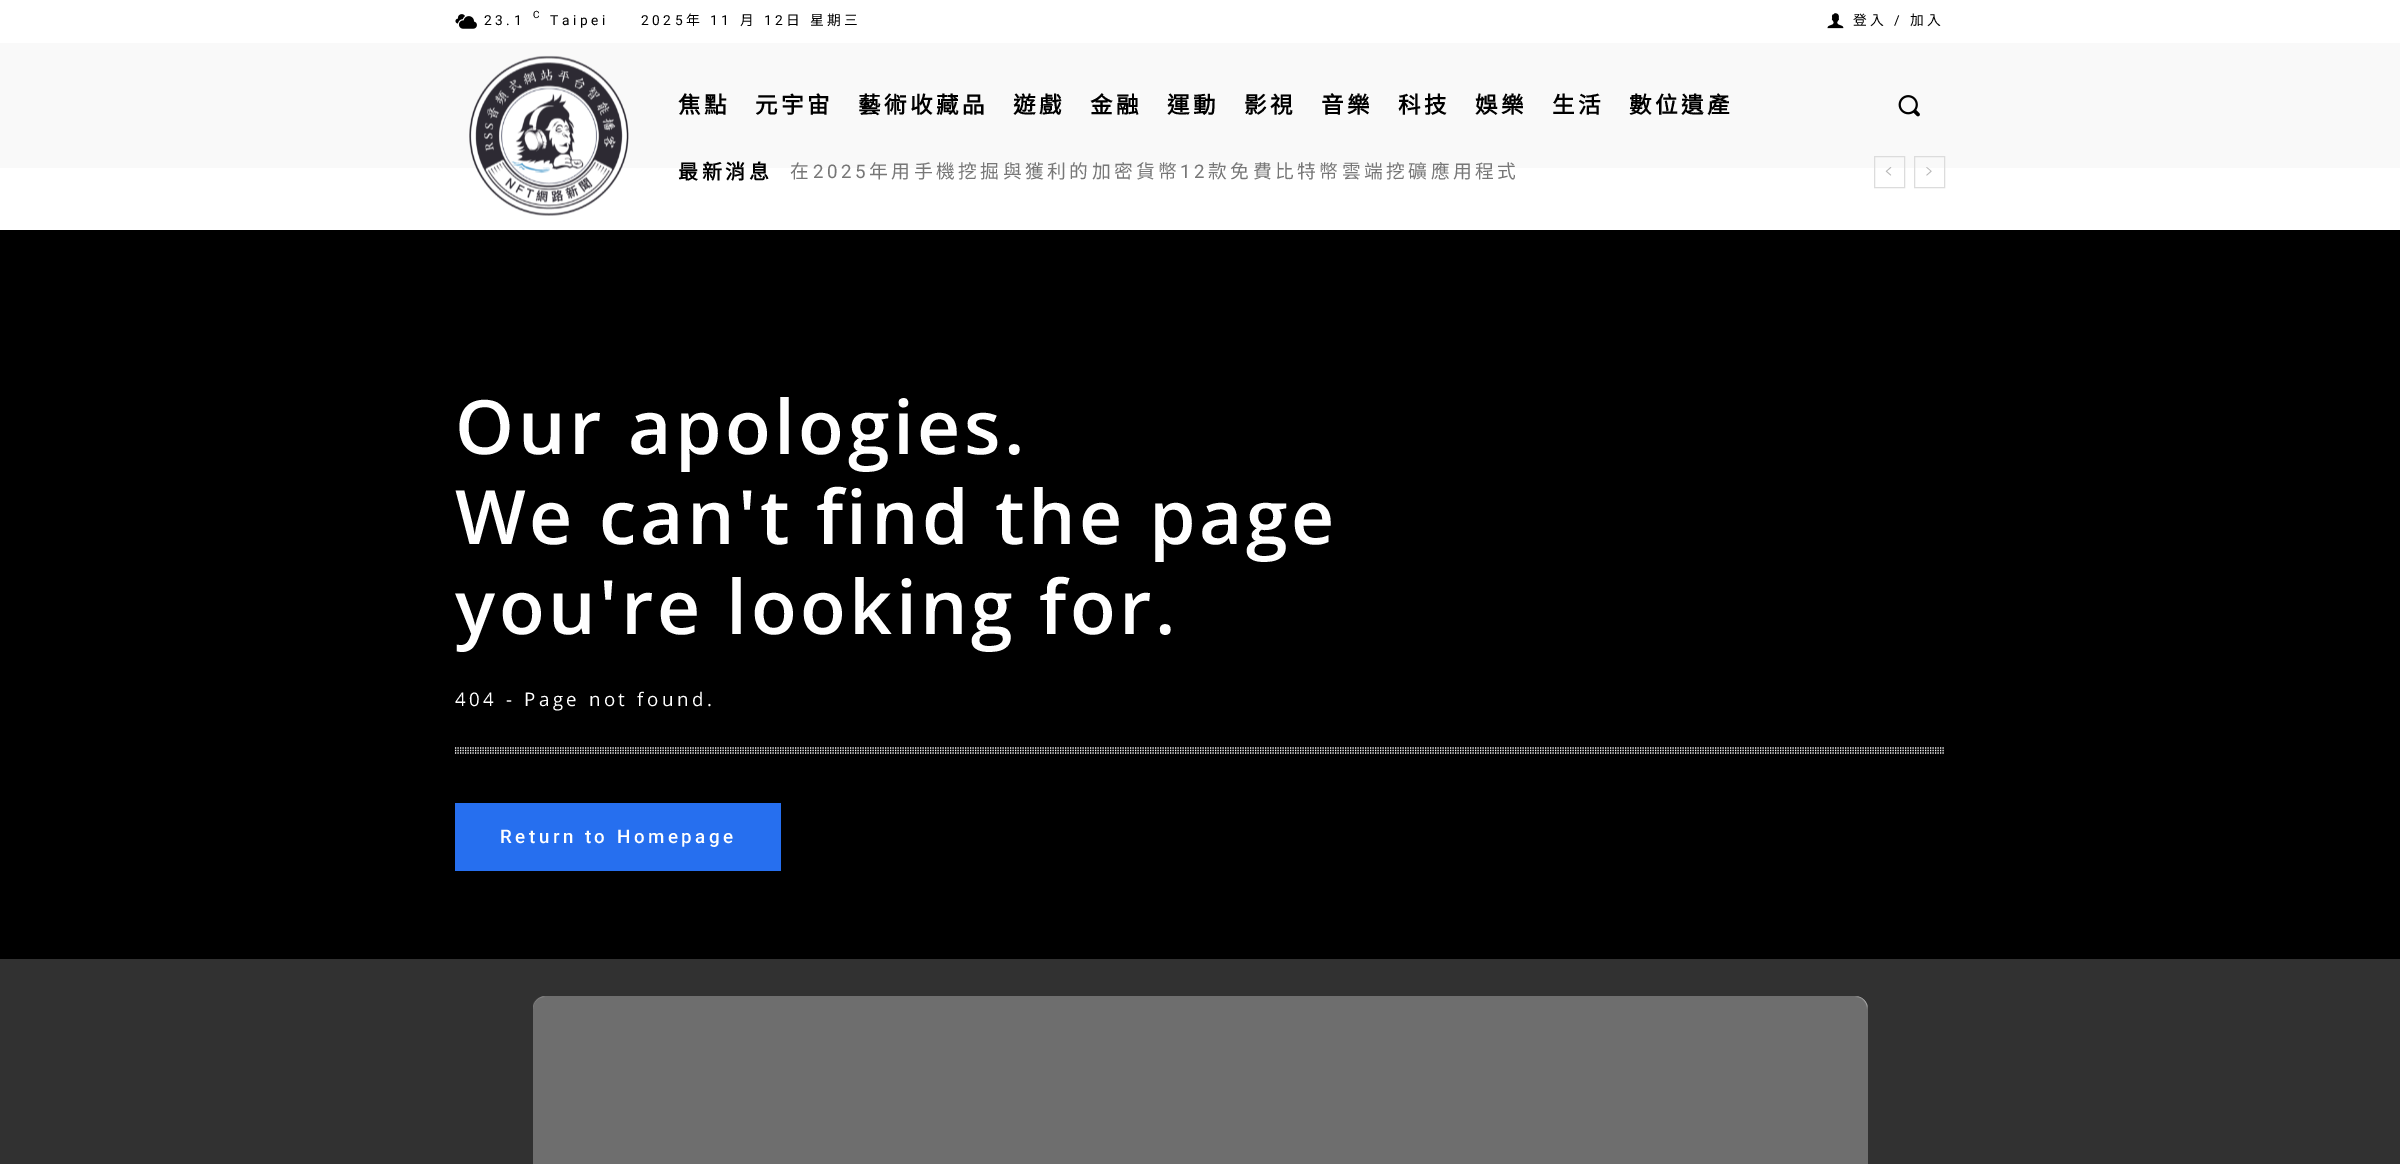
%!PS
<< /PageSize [2400 1164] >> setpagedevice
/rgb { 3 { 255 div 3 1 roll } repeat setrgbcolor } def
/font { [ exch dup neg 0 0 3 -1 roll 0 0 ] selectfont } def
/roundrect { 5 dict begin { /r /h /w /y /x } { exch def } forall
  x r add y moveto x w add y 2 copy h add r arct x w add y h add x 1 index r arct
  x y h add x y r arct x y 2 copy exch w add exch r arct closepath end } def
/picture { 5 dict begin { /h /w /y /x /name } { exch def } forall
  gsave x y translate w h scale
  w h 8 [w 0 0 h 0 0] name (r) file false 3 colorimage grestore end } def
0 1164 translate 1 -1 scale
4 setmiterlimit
255 255 255 rgb
0 0 2400 1164 rectfill
(img/1.rgb) 455 14 22 15 picture
(img/2.rgb) 1827 13 17 16 picture
249 249 249 rgb
0 43 2400 125 rectfill
(img/3.rgb) 469 55 160 161 picture
(img/4.rgb) 1898 95 22 22 picture
220 220 220 rgb
1874.5 156.5 30 31 rectstroke
(img/5.rgb) 1885 167 7 9 picture
1914.5 156.5 30 31 rectstroke
(img/6.rgb) 1926 167 6 9 picture
0 0 0 rgb
0 230 2400 729 rectfill
255 255 255 rgb
1.2 setlinewidth
[1.25 1.25] 0 setdash
455 748 moveto 1945 748 lineto stroke
455 750.5 moveto 1945 750.5 lineto stroke
455 753 moveto 1945 753 lineto stroke
38 111 239 rgb
455 803 326 68 rectfill
49 49 49 rgb
0 959 2400 205 rectfill
228 228 228 rgb
533 996 1335 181 13 roundrect fill
(img/7.rgb) 533 996 1335 168 picture
/Roboto-Regular 13.75 font
0 0 0 rgb
484 25 moveto 3.5 0 (23.1) ashow
/Roboto-Regular 10 font
533 18 moveto 3.5 0 (C) ashow
/Roboto-Regular 13.75 font
550 25 moveto 3.5 0 (Taipei) ashow
641 25 moveto 3.5 0 (2025) ashow
/NotoSansCJKTC-Regular 13.75 font
686 25 moveto 3.5 0 (年) ashow
/Roboto-Regular 13.75 font
710 25 moveto 3.5 0 (11) ashow
/NotoSansCJKTC-Regular 13.75 font
740 25 moveto 3.5 0 (月) ashow
/Roboto-Regular 13.75 font
764 25 moveto 3.5 0 (12) ashow
/NotoSansCJKTC-Regular 13.75 font
786 25 moveto 3.5 0 (日 星期三) ashow
1853 25 moveto 3.5 0 (登入) ashow
/Roboto-Regular 13.75 font
1894 25 moveto 3.5 0 (/) ashow
/NotoSansCJKTC-Regular 13.75 font
1910 25 moveto 3.5 0 (加入) ashow
/NotoSansCJKTC-Bold 22.5 font
678 113 moveto 3.5 0 (焦點) ashow
755 113 moveto 3.5 0 (元宇宙) ashow
858 113 moveto 3.5 0 (藝術收藏品) ashow
1013 113 moveto 3.5 0 (遊戲) ashow
1090 113 moveto 3.5 0 (金融) ashow
1167 113 moveto 3.5 0 (運動) ashow
1244 113 moveto 3.5 0 (影視) ashow
1321 113 moveto 3.5 0 (音樂) ashow
1398 113 moveto 3.5 0 (科技) ashow
1475 113 moveto 3.5 0 (娛樂) ashow
1552 113 moveto 3.5 0 (生活) ashow
1629 113 moveto 3.5 0 (數位遺產) ashow
/NotoSansCJKTC-Bold 20 font
678 179 moveto 3.5 0 (最新消息) ashow
/NotoSansCJKTC-Regular 18.75 font
119 119 119 rgb
790 178 moveto 3.5 0 (在) ashow
/Roboto-Regular 18.75 font
813 178 moveto 3.5 0 (2025) ashow
/NotoSansCJKTC-Regular 18.75 font
869 178 moveto 3.5 0 (年用手機挖掘與獲利的加密貨幣) ashow
/Roboto-Regular 18.75 font
1180 178 moveto 3.5 0 (12) ashow
/NotoSansCJKTC-Regular 18.75 font
1208 178 moveto 3.5 0 (款免費比特幣雲端挖礦應用程式) ashow
/OpenSans-SemiBold 75 font
255 255 255 rgb
455 454 moveto 3.5 0 (Our apologies.) ashow
455 544 moveto 3.5 0 (We can't find the page) ashow
455 634 moveto 3.5 0 (you're looking for.) ashow
/OpenSans-Regular 18.75 font
455 706 moveto 3.5 0 (404 - Page not found.) ashow
/Roboto-Medium 18.75 font
500 843 moveto 3.5 0 (Return to Homepage) ashow
showpage
